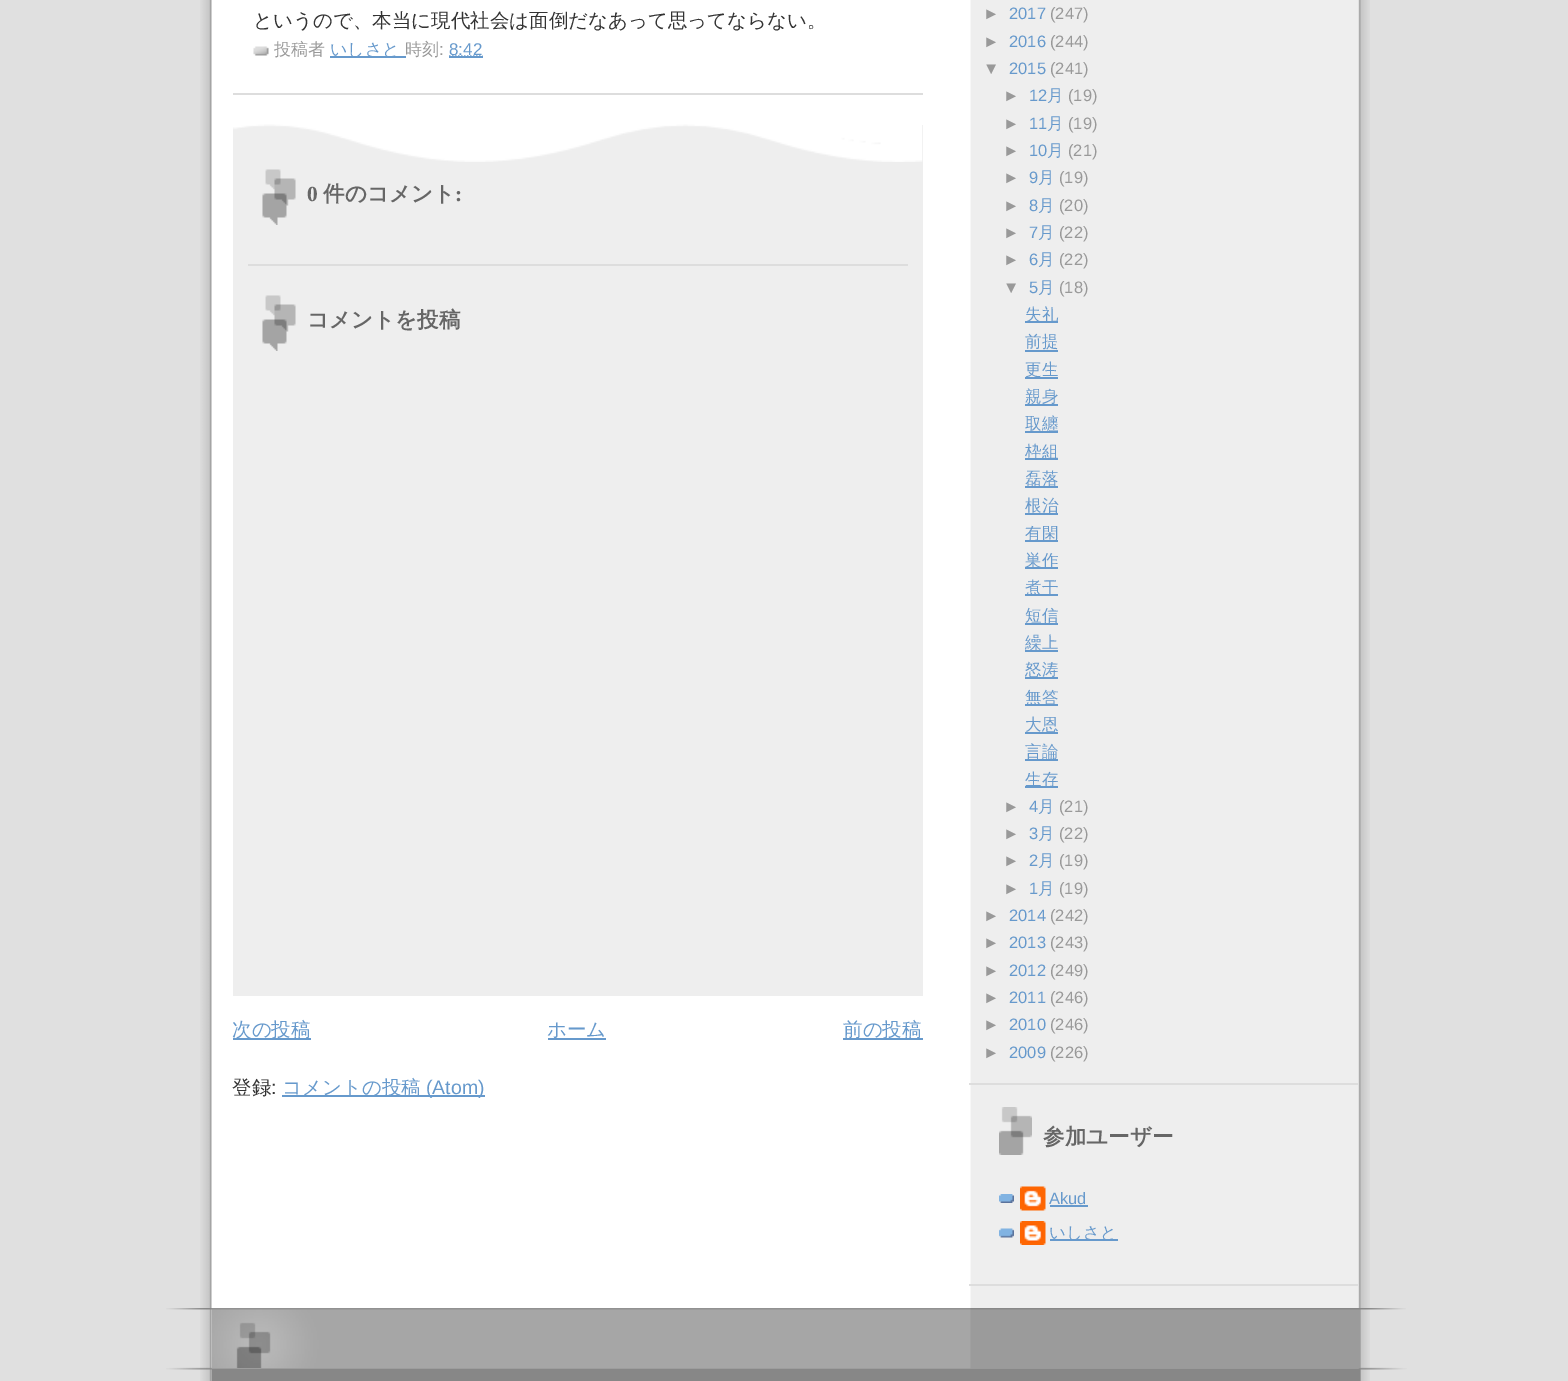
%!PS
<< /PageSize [1568 1381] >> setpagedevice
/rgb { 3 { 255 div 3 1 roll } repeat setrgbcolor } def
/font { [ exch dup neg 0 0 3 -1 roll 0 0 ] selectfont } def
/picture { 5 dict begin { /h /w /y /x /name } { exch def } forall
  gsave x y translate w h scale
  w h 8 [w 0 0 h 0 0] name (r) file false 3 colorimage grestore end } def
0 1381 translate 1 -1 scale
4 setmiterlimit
224 224 224 rgb
0 0 1568 1381 rectfill
(img/1.rgb) 200 0 1170 1381 picture
221 221 221 rgb
233 93 690 2 rectfill
(img/2.rgb) 253 46 16 10 picture
102 153 204 rgb
330 56 76 2 rectfill
1.5 setlinewidth
[1.5 1.5] 0 setdash
449 56 moveto 482.5 56 lineto stroke
449 56 34 2 rectfill
238 238 238 rgb
233 125 690 871 rectfill
(img/3.rgb) 233 124 690 38 picture
(img/4.rgb) 262 169 34 56 picture
221 221 221 rgb
248 264 660 2 rectfill
(img/4.rgb) 262 295 34 56 picture
[
  [233 1038 78 2 102 153 204]
  [548 1038 58 2 102 153 204]
  [843 1038 80 2 102 153 204]
  [282 1095 203 2 102 153 204]
  [969 1083 389 2 221 221 221]
  [1025 321 33 2 102 153 204]
  [1025 350 33 2 102 153 204]
  [1025 377 33 2 102 153 204]
  [1025 404 33 2 102 153 204]
  [1025 431 33 2 102 153 204]
  [1025 458 33 2 102 153 204]
  [1025 486 33 2 102 153 204]
  [1025 513 33 2 102 153 204]
  [1025 540 33 2 102 153 204]
  [1025 567 33 2 102 153 204]
  [1025 594 33 2 102 153 204]
  [1025 623 33 2 102 153 204]
  [1025 650 33 2 102 153 204]
  [1025 677 33 2 102 153 204]
  [1025 704 33 2 102 153 204]
  [1025 732 33 2 102 153 204]
  [1025 759 33 2 102 153 204]
  [1025 786 33 2 102 153 204]
  [969 1284 389 2 221 221 221]
] { aload pop rgb rectfill } forall
(img/5.rgb) 999 1107 33 48 picture
(img/6.rgb) 999 1194 15 9 picture
(img/7.rgb) 1020 1186 26 25 picture
102 153 204 rgb
1050 1205 38 2 rectfill
(img/8.rgb) 999 1228 15 10 picture
(img/9.rgb) 1020 1221 26 24 picture
1050 1239 68 2 rectfill
(img/10.rgb) 166 1367 1241 14 picture
(img/11.rgb) 166 1308 1240 60 picture
/WenQuanYiZenHei-Medium 19.5 font
51 51 51 rgb
253 27 moveto (というので、本当に現代社会は面倒だなあって思ってならない。) show
/WenQuanYiZenHei-Medium 17 font
153 153 153 rgb
274 55 moveto (投稿者) show
102 153 204 rgb
330 55 moveto (いしさと) show
153 153 153 rgb
405 55 moveto (時刻) show
/LiberationSans-Regular 17 font
439 55 moveto (:) show
102 153 204 rgb
449 55 moveto (8:42) show
/LiberationSerif-Bold 21.5 font
102 102 102 rgb
307 201 moveto (0) show
/WenQuanYiZenHei-Bold 21.5 font
323 201 moveto (件のコメント) show
/LiberationSerif-Bold 21.5 font
455 201 moveto (:) show
/WenQuanYiZenHei-Bold 21.5 font
307 327 moveto (コメントを投稿) show
/WenQuanYiZenHei-Medium 19.5 font
102 153 204 rgb
[
  [(次の投稿) 232 1036]
  [(ホーム) 547 1036]
  [(前の投稿) 843 1036]
] { aload pop moveto show } forall
51 51 51 rgb
232 1094 moveto (登録) show
/LiberationSans-Regular 19.5 font
271 1094 moveto (:) show
/WenQuanYiZenHei-Medium 19.5 font
102 153 204 rgb
282 1094 moveto (コメントの投稿) show
/LiberationSans-Regular 19.5 font
426 1094 moveto (\(Atom\)) show
/LiberationSans-Regular 16.5 font
153 153 153 rgb
983 19 moveto (►) show
102 153 204 rgb
1009 19 moveto (2017) show
153 153 153 rgb
1050 19 moveto (\(247\)) show
983 47 moveto (►) show
102 153 204 rgb
1009 47 moveto (2016) show
153 153 153 rgb
1050 47 moveto (\(244\)) show
983 74 moveto (▼) show
102 153 204 rgb
1009 74 moveto (2015) show
153 153 153 rgb
1050 74 moveto (\(241\)) show
1003 101 moveto (►) show
102 153 204 rgb
1029 101 moveto (12) show
/WenQuanYiZenHei-Medium 16.5 font
1047 101 moveto (月) show
/LiberationSans-Regular 16.5 font
153 153 153 rgb
1068 101 moveto (\(19\)) show
1003 129 moveto (►) show
102 153 204 rgb
1029 129 moveto (11) show
/WenQuanYiZenHei-Medium 16.5 font
1047 129 moveto (月) show
/LiberationSans-Regular 16.5 font
153 153 153 rgb
1068 129 moveto (\(19\)) show
1003 156 moveto (►) show
102 153 204 rgb
1029 156 moveto (10) show
/WenQuanYiZenHei-Medium 16.5 font
1047 156 moveto (月) show
/LiberationSans-Regular 16.5 font
153 153 153 rgb
1068 156 moveto (\(21\)) show
1003 183 moveto (►) show
102 153 204 rgb
1029 183 moveto (9) show
/WenQuanYiZenHei-Medium 16.5 font
1038 183 moveto (月) show
/LiberationSans-Regular 16.5 font
153 153 153 rgb
1059 183 moveto (\(19\)) show
1003 211 moveto (►) show
102 153 204 rgb
1029 211 moveto (8) show
/WenQuanYiZenHei-Medium 16.5 font
1038 211 moveto (月) show
/LiberationSans-Regular 16.5 font
153 153 153 rgb
1059 211 moveto (\(20\)) show
1003 238 moveto (►) show
102 153 204 rgb
1029 238 moveto (7) show
/WenQuanYiZenHei-Medium 16.5 font
1038 238 moveto (月) show
/LiberationSans-Regular 16.5 font
153 153 153 rgb
1059 238 moveto (\(22\)) show
1003 265 moveto (►) show
102 153 204 rgb
1029 265 moveto (6) show
/WenQuanYiZenHei-Medium 16.5 font
1038 265 moveto (月) show
/LiberationSans-Regular 16.5 font
153 153 153 rgb
1059 265 moveto (\(22\)) show
1003 293 moveto (▼) show
102 153 204 rgb
1029 293 moveto (5) show
/WenQuanYiZenHei-Medium 16.5 font
1038 293 moveto (月) show
/LiberationSans-Regular 16.5 font
153 153 153 rgb
1059 293 moveto (\(18\)) show
/WenQuanYiZenHei-Medium 16.5 font
102 153 204 rgb
[
  [(失礼) 1025 320]
  [(前提) 1025 347]
  [(更生) 1025 375]
  [(親身) 1025 402]
  [(取纏) 1025 429]
  [(枠組) 1025 457]
  [(磊落) 1025 484]
  [(根治) 1025 511]
  [(有閑) 1025 539]
  [(巣作) 1025 566]
  [(煮干) 1025 593]
  [(短信) 1025 621]
  [(繰上) 1025 648]
  [(怒涛) 1025 675]
  [(無答) 1025 703]
  [(大恩) 1025 730]
  [(言論) 1025 757]
  [(生存) 1025 785]
] { aload pop moveto show } forall
/LiberationSans-Regular 16.5 font
153 153 153 rgb
1003 812 moveto (►) show
102 153 204 rgb
1029 812 moveto (4) show
/WenQuanYiZenHei-Medium 16.5 font
1038 812 moveto (月) show
/LiberationSans-Regular 16.5 font
153 153 153 rgb
1059 812 moveto (\(21\)) show
1003 839 moveto (►) show
102 153 204 rgb
1029 839 moveto (3) show
/WenQuanYiZenHei-Medium 16.5 font
1038 839 moveto (月) show
/LiberationSans-Regular 16.5 font
153 153 153 rgb
1059 839 moveto (\(22\)) show
1003 866 moveto (►) show
102 153 204 rgb
1029 866 moveto (2) show
/WenQuanYiZenHei-Medium 16.5 font
1038 866 moveto (月) show
/LiberationSans-Regular 16.5 font
153 153 153 rgb
1059 866 moveto (\(19\)) show
1003 894 moveto (►) show
102 153 204 rgb
1029 894 moveto (1) show
/WenQuanYiZenHei-Medium 16.5 font
1038 894 moveto (月) show
/LiberationSans-Regular 16.5 font
153 153 153 rgb
1059 894 moveto (\(19\)) show
983 921 moveto (►) show
102 153 204 rgb
1009 921 moveto (2014) show
153 153 153 rgb
1050 921 moveto (\(242\)) show
983 948 moveto (►) show
102 153 204 rgb
1009 948 moveto (2013) show
153 153 153 rgb
1050 948 moveto (\(243\)) show
983 976 moveto (►) show
102 153 204 rgb
1009 976 moveto (2012) show
153 153 153 rgb
1050 976 moveto (\(249\)) show
983 1003 moveto (►) show
102 153 204 rgb
1009 1003 moveto (2011) show
153 153 153 rgb
1050 1003 moveto (\(246\)) show
983 1030 moveto (►) show
102 153 204 rgb
1009 1030 moveto (2010) show
153 153 153 rgb
1050 1030 moveto (\(246\)) show
983 1058 moveto (►) show
102 153 204 rgb
1009 1058 moveto (2009) show
153 153 153 rgb
1050 1058 moveto (\(226\)) show
/WenQuanYiZenHei-Bold 21.5 font
102 102 102 rgb
1043 1144 moveto (参加ユーザー) show
/LiberationSans-Regular 16.5 font
102 153 204 rgb
1049 1204 moveto (Akud) show
/WenQuanYiZenHei-Medium 16.5 font
1049 1238 moveto (いしさと) show
showpage
